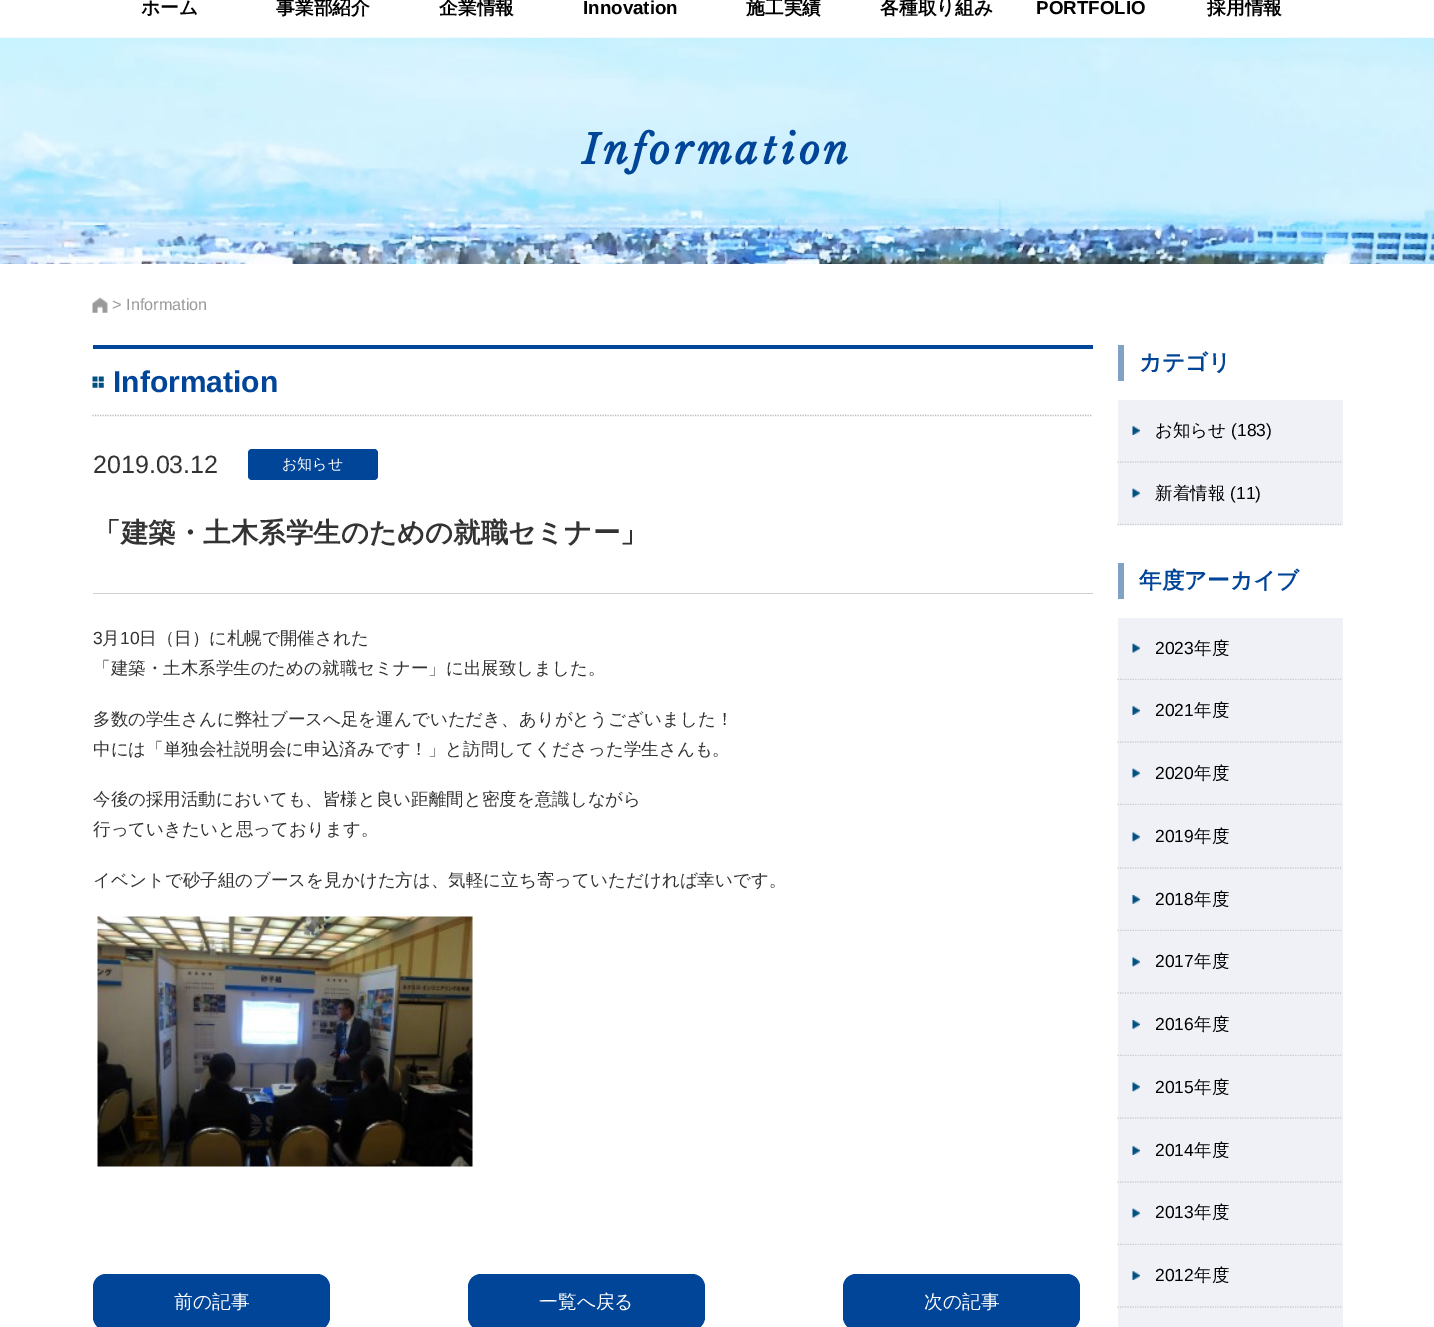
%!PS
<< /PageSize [1434 1327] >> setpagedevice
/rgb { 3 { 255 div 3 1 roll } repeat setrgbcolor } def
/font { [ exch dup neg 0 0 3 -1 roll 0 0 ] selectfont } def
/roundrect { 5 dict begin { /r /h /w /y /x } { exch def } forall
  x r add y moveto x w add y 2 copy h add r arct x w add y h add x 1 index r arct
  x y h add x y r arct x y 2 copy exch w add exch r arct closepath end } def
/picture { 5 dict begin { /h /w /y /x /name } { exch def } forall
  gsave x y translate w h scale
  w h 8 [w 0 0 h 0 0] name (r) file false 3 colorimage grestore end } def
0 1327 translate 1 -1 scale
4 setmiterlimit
255 255 255 rgb
0 0 1434 1327 rectfill
(img/1.rgb) 0 37 1434 227 picture
(img/2.rgb) 92 297 16 16 picture
0 69 151 rgb
93 345 1000 4 rectfill
187 187 187 rgb
1.2 setlinewidth
[1.25 1.25] 0 setdash
92.5 415.5 moveto 1092.5 415.5 lineto stroke
(img/3.rgb) 92 376 12 12 picture
209 209 209 rgb
93 593 1000 1 rectfill
0 69 151 rgb
248 449 130 31 4 roundrect fill
(img/4.rgb) 97 916 376 251 picture
93 1274 237 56 13 roundrect fill
468 1274 237 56 13 roundrect fill
843 1274 237 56 13 roundrect fill
127 162 197 rgb
1118 345 6 36 rectfill
240 241 247 rgb
1118 400 225 125 rectfill
204 204 204 rgb
1117.5 462 moveto 1342.5 462 lineto stroke
(img/5.rgb) 1132 426 8 9 picture
1117.5 524.5 moveto 1342.5 524.5 lineto stroke
(img/6.rgb) 1132 488 8 10 picture
127 162 197 rgb
1118 563 6 36 rectfill
240 241 247 rgb
1118 618 225 62 rectfill
204 204 204 rgb
1117.5 679.5 moveto 1342.5 679.5 lineto stroke
(img/6.rgb) 1132 643 8 10 picture
240 241 247 rgb
1118 680 225 125 rectfill
204 204 204 rgb
1117.5 742 moveto 1342.5 742 lineto stroke
(img/5.rgb) 1132 706 8 9 picture
1117.5 804.5 moveto 1342.5 804.5 lineto stroke
(img/6.rgb) 1132 768 8 10 picture
240 241 247 rgb
1118 805 225 126 rectfill
204 204 204 rgb
1117.5 868 moveto 1342.5 868 lineto stroke
(img/7.rgb) 1132 832 8 10 picture
1117.5 930.5 moveto 1342.5 930.5 lineto stroke
(img/8.rgb) 1132 895 8 9 picture
240 241 247 rgb
1118 931 225 125 rectfill
204 204 204 rgb
1117.5 993 moveto 1342.5 993 lineto stroke
(img/7.rgb) 1132 957 8 10 picture
1117.5 1055.5 moveto 1342.5 1055.5 lineto stroke
(img/8.rgb) 1132 1020 8 9 picture
240 241 247 rgb
1118 1056 225 189 rectfill
204 204 204 rgb
1117.5 1118 moveto 1342.5 1118 lineto stroke
(img/7.rgb) 1132 1082 8 10 picture
1117.5 1182 moveto 1342.5 1182 lineto stroke
(img/5.rgb) 1132 1146 8 9 picture
1117.5 1244.5 moveto 1342.5 1244.5 lineto stroke
(img/6.rgb) 1132 1208 8 10 picture
240 241 247 rgb
1118 1245 225 82 rectfill
204 204 204 rgb
1117.5 1307 moveto 1342.5 1307 lineto stroke
(img/5.rgb) 1132 1271 8 9 picture
/WenQuanYiZenHei-Bold 18.75 font
0 0 0 rgb
[
  [(ホーム) 141 14]
  [(事業部紹介) 276 14]
  [(企業情報) 439 14]
] { aload pop moveto show } forall
/LiberationSans-Bold 18.75 font
583 14 moveto (Innovation) show
/WenQuanYiZenHei-Bold 18.75 font
746 14 moveto (施工実績) show
880 14 moveto (各種取り組み) show
/LiberationSans-Bold 18.75 font
1036 14 moveto (PORTFOLIO) show
/WenQuanYiZenHei-Bold 18.75 font
1207 14 moveto (採用情報) show
/LibreBaskerville-BoldItalic 40 font
0 69 151 rgb
582 164 moveto 4 0 (Information) ashow
/LiberationSans-Regular 16.25 font
153 153 153 rgb
112 310 moveto (> Information) show
/LiberationSans-Bold 30 font
0 69 151 rgb
113 392 moveto (Information) show
/LiberationSans-Regular 25 font
51 51 51 rgb
93 473 moveto (2019.03.12) show
/WenQuanYiZenHei-Medium 15 font
255 255 255 rgb
282 469 moveto (お知らせ) show
/WenQuanYiZenHei-Bold 27.5 font
51 51 51 rgb
93 542 moveto (「建築・土木系学生のための就職セミナー」) show
/LiberationSans-Regular 17.5 font
93 644 moveto (3) show
/WenQuanYiZenHei-Medium 17.5 font
102 644 moveto (月) show
/LiberationSans-Regular 17.5 font
120 644 moveto (10) show
/WenQuanYiZenHei-Medium 17.5 font
[
  [(日（日）に札幌で開催された) 139 644]
  [(「建築・土木系学生のための就職セミナー」に出展致しました。) 93 674]
  [(多数の学生さんに弊社ブースへ足を運んでいただき、ありがとうございました！) 93 725]
  [(中には「単独会社説明会に申込済みです！」と訪問してくださった学生さんも。) 93 755]
  [(今後の採用活動においても、皆様と良い距離間と密度を意識しながら) 93 805]
  [(行っていきたいと思っております。) 93 835]
  [(イベントで砂子組のブースを見かけた方は、気軽に立ち寄っていただければ幸いです。) 93 886]
] { aload pop moveto show } forall
/WenQuanYiZenHei-Medium 18.75 font
255 255 255 rgb
[
  [(前の記事) 174 1308]
  [(一覧へ戻る) 539 1308]
  [(次の記事) 924 1308]
] { aload pop moveto show } forall
/WenQuanYiZenHei-Bold 22.5 font
0 69 151 rgb
1139 370 moveto (カテゴリ) show
/WenQuanYiZenHei-Medium 17.5 font
0 0 0 rgb
1155 436 moveto (お知らせ) show
/LiberationSans-Regular 17.5 font
1231 436 moveto (\(183\)) show
/WenQuanYiZenHei-Medium 17.5 font
1155 499 moveto (新着情報) show
/LiberationSans-Regular 17.5 font
1230 499 moveto (\(11\)) show
/WenQuanYiZenHei-Bold 22.5 font
0 69 151 rgb
1139 588 moveto (年度アーカイブ) show
/LiberationSans-Regular 17.5 font
0 0 0 rgb
1155 654 moveto (2023) show
/WenQuanYiZenHei-Medium 17.5 font
1194 654 moveto (年度) show
/LiberationSans-Regular 17.5 font
1155 716 moveto (2021) show
/WenQuanYiZenHei-Medium 17.5 font
1194 716 moveto (年度) show
/LiberationSans-Regular 17.5 font
1155 779 moveto (2020) show
/WenQuanYiZenHei-Medium 17.5 font
1194 779 moveto (年度) show
/LiberationSans-Regular 17.5 font
1155 842 moveto (2019) show
/WenQuanYiZenHei-Medium 17.5 font
1194 842 moveto (年度) show
/LiberationSans-Regular 17.5 font
1155 905 moveto (2018) show
/WenQuanYiZenHei-Medium 17.5 font
1194 905 moveto (年度) show
/LiberationSans-Regular 17.5 font
1155 967 moveto (2017) show
/WenQuanYiZenHei-Medium 17.5 font
1194 967 moveto (年度) show
/LiberationSans-Regular 17.5 font
1155 1030 moveto (2016) show
/WenQuanYiZenHei-Medium 17.5 font
1194 1030 moveto (年度) show
/LiberationSans-Regular 17.5 font
1155 1093 moveto (2015) show
/WenQuanYiZenHei-Medium 17.5 font
1194 1093 moveto (年度) show
/LiberationSans-Regular 17.5 font
1155 1156 moveto (2014) show
/WenQuanYiZenHei-Medium 17.5 font
1194 1156 moveto (年度) show
/LiberationSans-Regular 17.5 font
1155 1218 moveto (2013) show
/WenQuanYiZenHei-Medium 17.5 font
1194 1218 moveto (年度) show
/LiberationSans-Regular 17.5 font
1155 1281 moveto (2012) show
/WenQuanYiZenHei-Medium 17.5 font
1194 1281 moveto (年度) show
showpage
